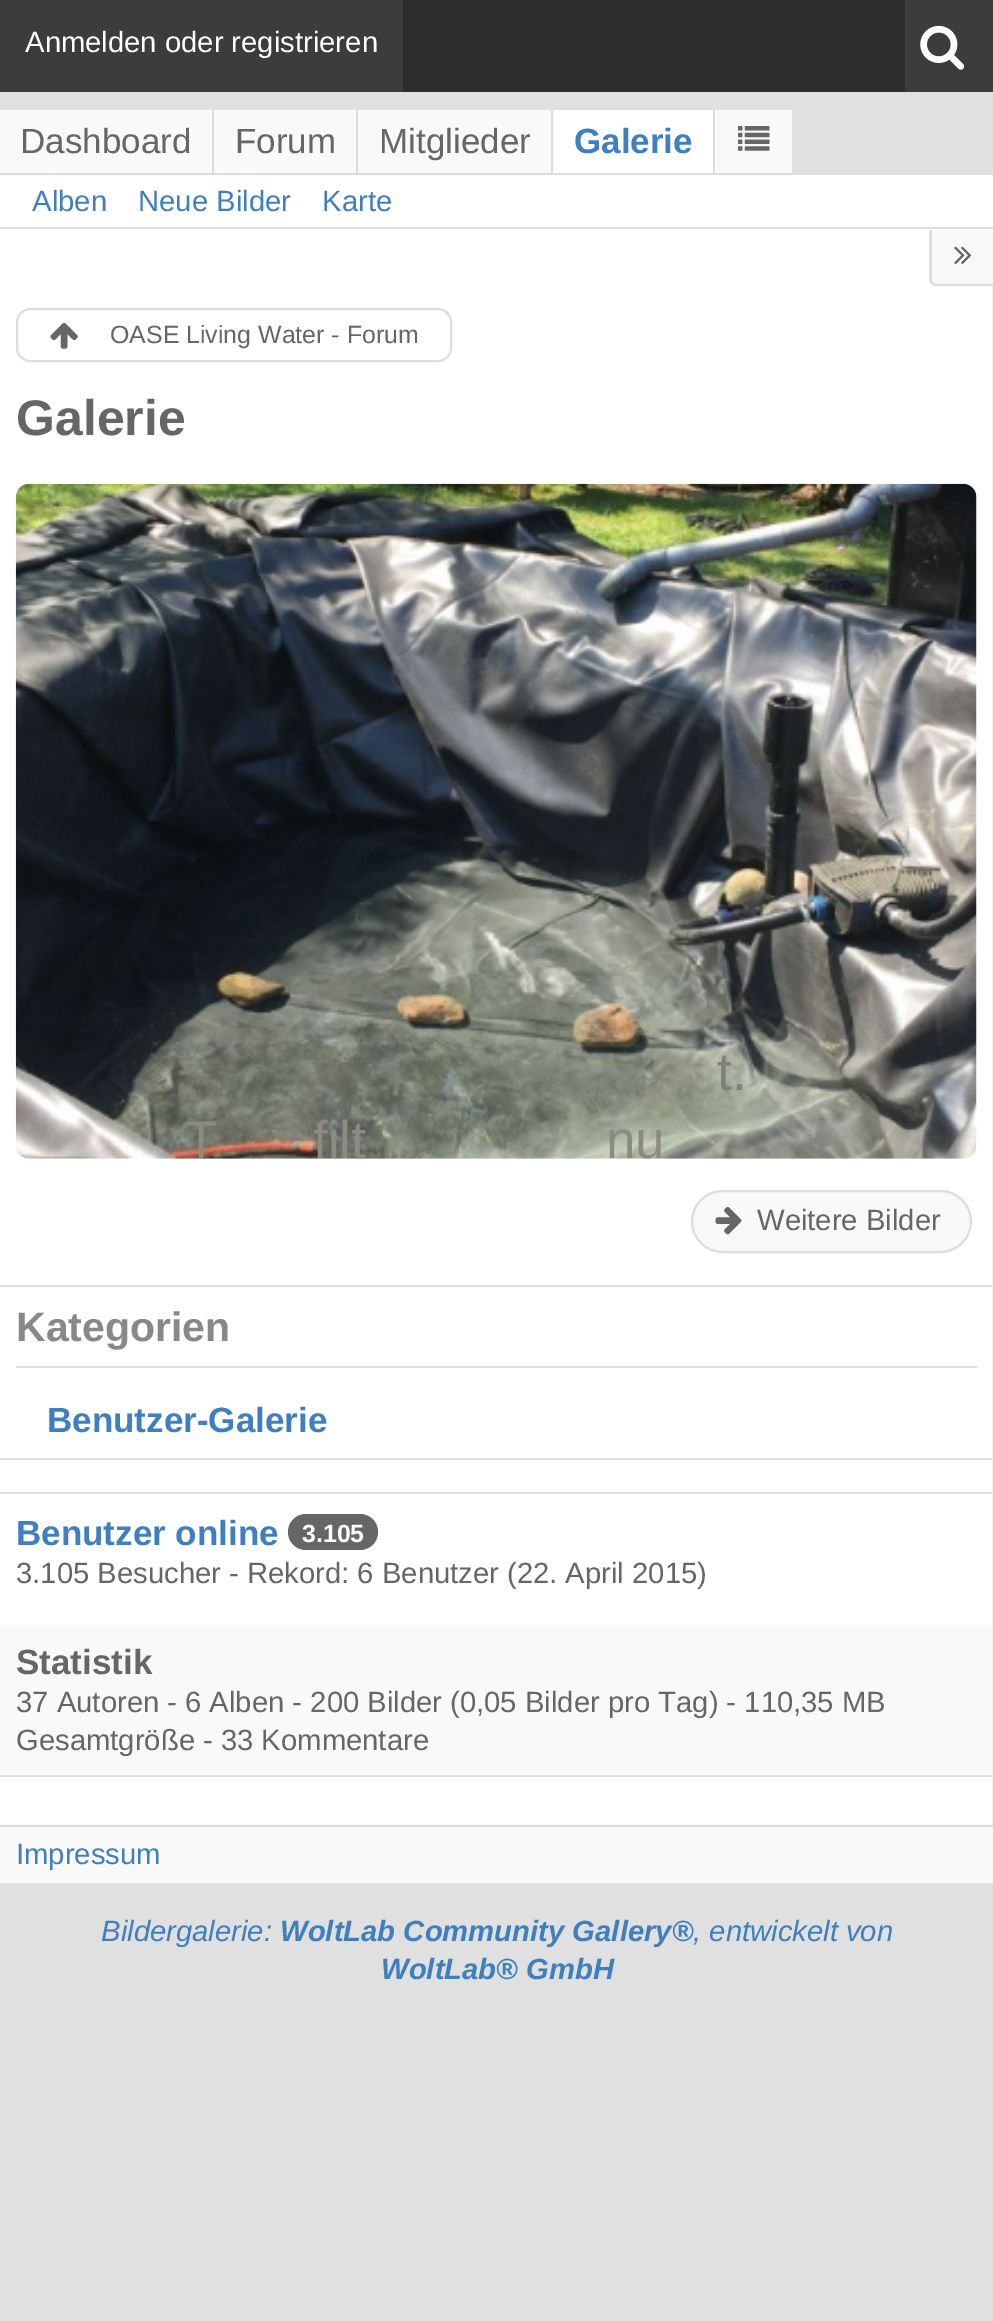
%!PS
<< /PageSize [993 2321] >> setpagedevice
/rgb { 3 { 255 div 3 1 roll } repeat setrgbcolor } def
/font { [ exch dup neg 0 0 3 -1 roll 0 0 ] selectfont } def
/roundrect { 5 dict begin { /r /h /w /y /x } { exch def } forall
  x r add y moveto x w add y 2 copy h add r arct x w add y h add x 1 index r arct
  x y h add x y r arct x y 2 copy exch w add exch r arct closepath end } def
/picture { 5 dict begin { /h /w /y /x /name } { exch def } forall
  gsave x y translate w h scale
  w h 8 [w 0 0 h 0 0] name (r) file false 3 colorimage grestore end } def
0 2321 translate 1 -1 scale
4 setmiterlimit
224 224 224 rgb
0 0 993 2321 rectfill
[
  [403 0 502 92 45 45 45]
  [0 0 403 92 60 60 60]
  [905 0 88 92 60 60 60]
] { aload pop rgb rectfill } forall
(img/1.rgb) 920 25 45 45 picture
[
  [0 110 792 63 249 249 249]
  [212 110 2 63 221 221 221]
  [356 110 2 63 221 221 221]
  [551 110 2 63 221 221 221]
  [554 110 162 63 255 255 255]
  [713 110 2 66 221 221 221]
] { aload pop rgb rectfill } forall
(img/2.rgb) 738 126 32 25 picture
[
  [0 175 993 55 255 255 255]
  [0 173 993 2 221 221 221]
  [0 227 993 2 221 221 221]
  [992 286 1 1539 244 244 244]
  [0 230 992 1595 255 255 255]
] { aload pop rgb rectfill } forall
249 249 249 rgb
932 230 moveto 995 230 lineto 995 284 lineto 937 284 lineto 934 284 932 282 932 279 curveto closepath fill
221 221 221 rgb
929 230 moveto 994 230 lineto 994 286 lineto 936 286 lineto 932 286 929 283 929 279 curveto closepath 932 230 moveto 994 230 lineto 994 284 lineto 936 284 lineto 934 284 932 281 932 279 curveto closepath eofill
(img/3.rgb) 954 246 18 19 picture
2 setlinewidth
17 309 434 52 13 roundrect stroke
(img/4.rgb) 50 322 28 27 picture
(img/5.rgb) 15 483 962 676 picture
249 249 249 rgb
692 1191 279 61 30.5 roundrect gsave fill grestore
221 221 221 rgb
stroke
(img/6.rgb) 715 1207 27 28 picture
[
  [0 1285 992 2 221 221 221]
  [0 1458 992 2 221 221 221]
  [16 1366 961 2 221 221 221]
  [0 1492 992 2 221 221 221]
  [0 1775 992 2 221 221 221]
] { aload pop rgb rectfill } forall
102 102 102 rgb
288 1514 90 36 18 roundrect fill
[
  [0 1625 992 150 249 249 249]
  [0 1827 993 56 249 249 249]
  [0 1825 993 2 221 221 221]
] { aload pop rgb rectfill } forall
/LiberationSans-Regular 29.25 font
255 255 255 rgb
25 52 moveto (Anmelden oder registrieren) show
/LiberationSans-Regular 35 font
102 102 102 rgb
[
  [(Dashboard) 20 153]
  [(Forum) 235 153]
  [(Mitglieder) 379 153]
] { aload pop moveto show } forall
/LiberationSans-Bold 35 font
63 127 191 rgb
574 153 moveto (Galerie) show
/LiberationSans-Regular 29.25 font
[
  [(Alben) 32 211]
  [(Neue Bilder) 138 211]
  [(Karte) 322 211]
] { aload pop moveto show } forall
/LiberationSans-Regular 24.9 font
102 102 102 rgb
110 343 moveto (OASE Living Water - Forum) show
/LiberationSans-Bold 50 font
16 435 moveto (Galerie) show
/LiberationSans-Regular 53 font
125 130 118 rgb
717 1090 moveto (t.) show
139 140 127 rgb
[
  [(T) 185 1158]
  [(filt) 313 1158]
  [(nu) 606 1158]
] { aload pop moveto show } forall
/LiberationSans-Regular 29.25 font
102 102 102 rgb
757 1230 moveto (Weitere Bilder) show
/LiberationSans-Bold 41 font
136 136 136 rgb
16 1341 moveto (Kategorien) show
/LiberationSans-Bold 35 font
63 127 191 rgb
47 1432 moveto (Benutzer-Galerie) show
16 1545 moveto (Benutzer online) show
/LiberationSans-Bold 24.9 font
255 255 255 rgb
302 1542 moveto (3.105) show
/LiberationSans-Regular 29.25 font
102 102 102 rgb
16 1583 moveto (3.105 Besucher - Rekord: 6 Benutzer \(22. April 2015\)) show
/LiberationSans-Bold 35 font
16 1674 moveto (Statistik) show
/LiberationSans-Regular 29.25 font
16 1712 moveto (37 Autoren - 6 Alben - 200 Bilder \(0,05 Bilder pro Tag\) - 110,35 MB) show
16 1750 moveto (Gesamtgröße - 33 Kommentare) show
63 127 191 rgb
16 1864 moveto (Impressum) show
/LiberationSans-Italic 29.25 font
101 1941 moveto (Bildergalerie:) show
/LiberationSans-BoldItalic 29.25 font
280 1941 moveto (WoltLab Community Gallery®) show
/LiberationSans-Italic 29.25 font
693 1941 moveto (, entwickelt von) show
/LiberationSans-BoldItalic 29.25 font
381 1979 moveto (WoltLab® GmbH) show
showpage
